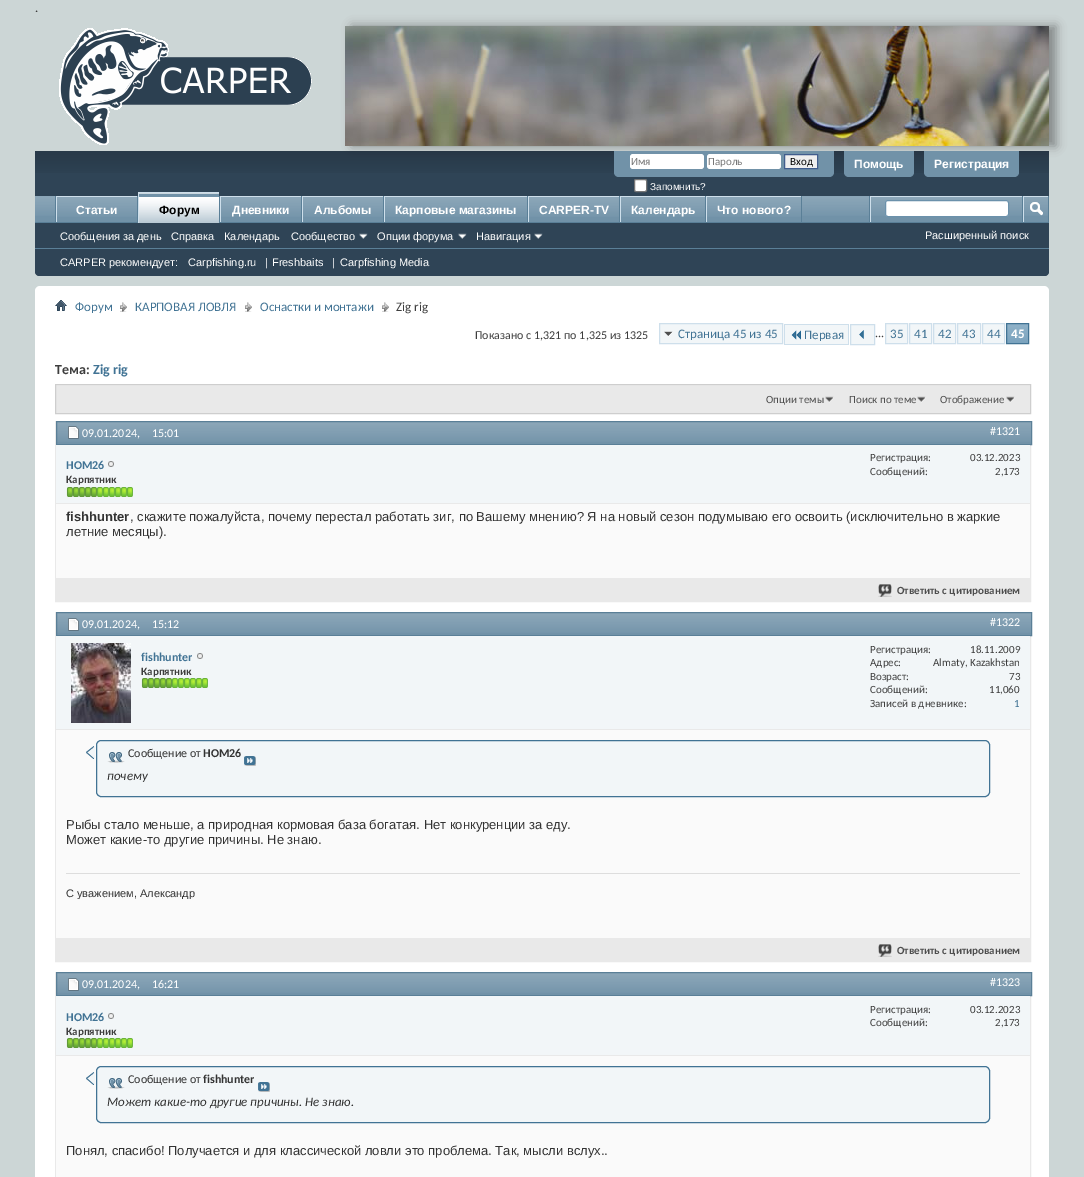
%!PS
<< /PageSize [1084 1177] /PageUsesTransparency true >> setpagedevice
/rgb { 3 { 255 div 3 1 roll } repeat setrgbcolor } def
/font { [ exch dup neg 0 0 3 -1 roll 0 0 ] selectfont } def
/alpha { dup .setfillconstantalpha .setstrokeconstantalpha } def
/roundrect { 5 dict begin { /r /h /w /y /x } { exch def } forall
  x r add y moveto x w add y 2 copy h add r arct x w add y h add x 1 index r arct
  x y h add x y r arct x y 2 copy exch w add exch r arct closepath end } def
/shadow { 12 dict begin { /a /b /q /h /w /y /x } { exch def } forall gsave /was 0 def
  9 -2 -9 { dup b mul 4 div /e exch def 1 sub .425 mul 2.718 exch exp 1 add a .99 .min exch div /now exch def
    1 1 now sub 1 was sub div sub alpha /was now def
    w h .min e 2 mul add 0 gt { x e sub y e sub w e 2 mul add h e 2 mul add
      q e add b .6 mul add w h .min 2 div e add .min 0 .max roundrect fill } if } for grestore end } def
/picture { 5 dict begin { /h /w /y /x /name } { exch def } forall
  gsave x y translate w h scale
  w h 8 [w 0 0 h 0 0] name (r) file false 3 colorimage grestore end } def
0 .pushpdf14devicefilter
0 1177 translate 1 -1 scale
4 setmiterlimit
204 214 214 rgb
0 0 1084 1177 rectfill
(img/1.rgb) 59 28 253 117 picture
47 68 86 rgb
35 151 moveto 1049 151 lineto 1049 271 lineto 1049 274 1047 276 1044 276 curveto 40 276 lineto 37 276 35 274 35 271 curveto closepath fill
(img/3.rgb) 35 151 1014 22 picture
0 0 0 rgb
352 26 704 120 0 5 0.35 shadow
(img/2.rgb) 345 26 704 120 picture
113 146 168 rgb
614 151 moveto 834 151 lineto 834 172 lineto 834 175 832 177 829 177 curveto 619 177 lineto 616 177 614 175 614 172 curveto closepath fill
255 255 255 rgb
630 154 74 15 3 roundrect fill
707 154 74 15 3 roundrect fill
239 239 239 rgb
784.5 154.5 moveto 817.5 154.5 lineto 817.5 168.5 lineto 784.5 168.5 lineto closepath gsave fill grestore
65 93 141 rgb
stroke
255 255 255 rgb
634.5 179.5 12 12 1.5 roundrect gsave fill grestore
118 118 118 rgb
stroke
113 146 168 rgb
844 151 moveto 914 151 lineto 914 172 lineto 914 175 912 177 909 177 curveto 849 177 lineto 846 177 844 175 844 172 curveto closepath fill
924 151 moveto 1019 151 lineto 1019 172 lineto 1019 175 1017 177 1014 177 curveto 929 177 lineto 926 177 924 175 924 172 curveto closepath fill
47 68 86 rgb
35 196 moveto 1049 196 lineto 1049 271 lineto 1049 274 1047 276 1044 276 curveto 40 276 lineto 37 276 35 274 35 271 curveto closepath fill
113 146 168 rgb
35 196 1013 26 rectfill
(img/4.rgb) 35 196 1013 20 picture
[
  [219 196 1 26 90 127 151]
  [137 196 1 27 90 127 151]
  [55 196 1 27 90 127 151]
  [56 196 81 1 206 223 235]
  [56 196 1 27 206 223 235]
  [301 196 1 27 90 127 151]
  [220 196 81 1 206 223 235]
  [220 196 1 27 206 223 235]
  [383 196 1 27 90 127 151]
  [302 196 81 1 206 223 235]
  [302 196 1 27 206 223 235]
  [527 196 1 27 90 127 151]
  [384 196 143 1 206 223 235]
  [384 196 1 27 206 223 235]
  [619 196 1 27 90 127 151]
  [528 196 91 1 206 223 235]
  [528 196 1 27 206 223 235]
  [705 196 1 27 90 127 151]
  [620 196 85 1 206 223 235]
  [620 196 1 27 206 223 235]
  [801 196 1 27 90 127 151]
  [706 196 95 1 206 223 235]
  [706 196 1 27 206 223 235]
  [35 222 1014 1 90 127 151]
  [139 193 80 30 113 146 168]
] { aload pop rgb rectfill } forall
(img/5.rgb) 139 193 80 30 picture
206 223 235 rgb
138 192 81 1 rectfill
138 192 1 31 rectfill
(img/6.rgb) 359 233 9 6 picture
(img/6.rgb) 458 233 9 6 picture
(img/6.rgb) 534 233 9 6 picture
90 127 151 rgb
35 248 1014 1 rectfill
113 146 168 rgb
57 197 80 19 rectfill
(img/7.rgb) 57 197 80 20 picture
221 197 80 19 rectfill
(img/7.rgb) 221 197 80 20 picture
303 197 80 19 rectfill
(img/7.rgb) 303 197 80 20 picture
385 197 142 19 rectfill
(img/8.rgb) 385 197 142 20 picture
529 197 90 19 rectfill
(img/9.rgb) 529 197 90 20 picture
621 197 84 19 rectfill
(img/10.rgb) 621 197 84 20 picture
707 197 94 19 rectfill
(img/11.rgb) 707 197 94 20 picture
[
  [869 196 1 26 90 127 151]
  [870 196 152 1 206 223 235]
  [870 196 1 26 206 223 235]
] { aload pop rgb rectfill } forall
255 255 255 rgb
885.5 200.5 123 16 2.5 roundrect gsave fill grestore
107 145 171 rgb
stroke
[
  [1048 196 1 26 90 127 151]
  [1022 196 1 26 90 127 151]
  [1023 196 25 1 206 223 235]
  [1023 196 1 26 206 223 235]
] { aload pop rgb rectfill } forall
(img/12.rgb) 1030 202 13 14 picture
255 255 255 rgb
35 286 1014 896 5 roundrect fill
(img/13.rgb) 55 300 12 11 picture
(img/14.rgb) 120 302 7 10 picture
(img/14.rgb) 245 302 7 10 picture
(img/14.rgb) 382 302 7 10 picture
242 246 248 rgb
660 324 122 19 rectfill
(img/15.rgb) 664 331 9 6 picture
206 223 235 rgb
659.5 323.5 123 20 rectstroke
242 246 248 rgb
785 325 63 19 rectfill
(img/16.rgb) 791 330 10 10 picture
[
  [784 324 65 1 206 223 235]
  [784 344 20 1 206 223 235]
  [784 324 1 21 206 223 235]
  [848 324 1 21 206 223 235]
  [804 344 45 1 206 223 235]
] { aload pop rgb rectfill } forall
242 246 248 rgb
850.5 324.5 moveto 874.5 324.5 lineto 874.5 344.5 lineto 850.5 344.5 lineto closepath gsave fill grestore
206 223 235 rgb
stroke
(img/17.rgb) 859 330 5 9 picture
242 246 248 rgb
885.5 323.5 moveto 907.5 323.5 lineto 907.5 343.5 lineto 885.5 343.5 lineto closepath gsave fill grestore
206 223 235 rgb
stroke
242 246 248 rgb
909.5 323.5 moveto 931.5 323.5 lineto 931.5 343.5 lineto 909.5 343.5 lineto closepath gsave fill grestore
206 223 235 rgb
stroke
242 246 248 rgb
933.5 323.5 moveto 955.5 323.5 lineto 955.5 343.5 lineto 933.5 343.5 lineto closepath gsave fill grestore
206 223 235 rgb
stroke
242 246 248 rgb
957.5 323.5 moveto 980.5 323.5 lineto 980.5 343.5 lineto 957.5 343.5 lineto closepath gsave fill grestore
206 223 235 rgb
stroke
242 246 248 rgb
982.5 323.5 moveto 1004.5 323.5 lineto 1004.5 343.5 lineto 982.5 343.5 lineto closepath gsave fill grestore
206 223 235 rgb
stroke
117 159 187 rgb
1007 324 21 19 rectfill
(img/18.rgb) 1007 324 21 19 picture
65 115 148 rgb
1006.5 323.5 22 20 rectstroke
233 233 233 rgb
56 386 974 27 rectfill
237 237 237 rgb
55 385 976 1 rectfill
206 206 206 rgb
55.5 384.5 975 29 rectstroke
(img/19.rgb) 825 396 9 7 picture
(img/19.rgb) 917 396 9 7 picture
(img/19.rgb) 1006 396 9 7 picture
233 233 233 rgb
55.5 421.5 975 180 rectstroke
113 146 168 rgb
57 422 974 22 rectfill
(img/20.rgb) 57 422 974 20 picture
90 127 151 rgb
56.5 421.5 975 23 rectstroke
(img/21.rgb) 68 426 11 13 picture
242 246 248 rgb
56 445 974 58 rectfill
233 233 233 rgb
56 503 974 1 rectfill
(img/22.rgb) 108 461 6 6 picture
(img/23.rgb) 66 487 7 10 picture
(img/24.rgb) 73 487 6 10 picture
(img/24.rgb) 79 487 6 10 picture
(img/24.rgb) 85 487 6 10 picture
(img/24.rgb) 91 487 6 10 picture
(img/25.rgb) 97 487 6 10 picture
(img/25.rgb) 103 487 6 10 picture
(img/25.rgb) 109 487 6 10 picture
(img/25.rgb) 115 487 6 10 picture
(img/25.rgb) 121 487 6 10 picture
(img/25.rgb) 127 487 6 10 picture
250 250 250 rgb
56 504 974 74 rectfill
233 233 233 rgb
56 578 974 23 rectfill
(img/26.rgb) 878 584 14 13 picture
55.5 612.5 975 349 rectstroke
113 146 168 rgb
57 613 974 22 rectfill
(img/20.rgb) 57 613 974 20 picture
90 127 151 rgb
56.5 612.5 975 23 rectstroke
(img/27.rgb) 68 618 11 13 picture
242 246 248 rgb
56 636 974 93 rectfill
233 233 233 rgb
56 729 974 1 rectfill
(img/28.rgb) 71 643 60 80 picture
(img/22.rgb) 197 653 6 6 picture
(img/23.rgb) 141 678 7 10 picture
(img/24.rgb) 148 678 6 10 picture
(img/24.rgb) 154 678 6 10 picture
(img/24.rgb) 160 678 6 10 picture
(img/24.rgb) 166 678 6 10 picture
(img/25.rgb) 172 678 6 10 picture
(img/25.rgb) 178 678 6 10 picture
(img/25.rgb) 184 678 6 10 picture
(img/25.rgb) 190 678 6 10 picture
(img/25.rgb) 196 678 6 10 picture
(img/25.rgb) 202 678 6 10 picture
250 250 250 rgb
56 730 974 208 rectfill
242 246 248 rgb
96.5 740.5 893 56 4.5 roundrect gsave fill grestore
65 115 148 rgb
stroke
(img/29.rgb) 86 746 9 13 picture
(img/30.rgb) 107 752 18 11 picture
(img/31.rgb) 244 756 12 10 picture
221 221 221 rgb
66 873 954 1 rectfill
233 233 233 rgb
56 938 974 23 rectfill
(img/26.rgb) 878 944 14 13 picture
55.5 972.5 975 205 rectstroke
113 146 168 rgb
57 973 974 22 rectfill
(img/20.rgb) 57 973 974 20 picture
90 127 151 rgb
56.5 972.5 975 23 rectstroke
(img/27.rgb) 68 978 11 13 picture
242 246 248 rgb
56 996 974 59 rectfill
233 233 233 rgb
56 1055 974 1 rectfill
(img/22.rgb) 108 1013 6 6 picture
(img/23.rgb) 66 1038 7 10 picture
(img/24.rgb) 73 1038 6 10 picture
(img/24.rgb) 79 1038 6 10 picture
(img/24.rgb) 85 1038 6 10 picture
(img/24.rgb) 91 1038 6 10 picture
(img/25.rgb) 97 1038 6 10 picture
(img/25.rgb) 103 1038 6 10 picture
(img/25.rgb) 109 1038 6 10 picture
(img/25.rgb) 115 1038 6 10 picture
(img/25.rgb) 121 1038 6 10 picture
(img/25.rgb) 127 1038 6 10 picture
250 250 250 rgb
56 1056 974 121 rectfill
242 246 248 rgb
96.5 1066.5 893 56 4.5 roundrect gsave fill grestore
65 115 148 rgb
stroke
(img/29.rgb) 86 1072 9 13 picture
(img/30.rgb) 107 1078 18 11 picture
(img/31.rgb) 258 1082 12 10 picture
/Carlito-Regular 13 font
62 62 62 rgb
35 12 moveto (.) show
/Carlito-Regular 11 font
119 119 119 rgb
631 165 moveto (Имя) show
708 165 moveto (Пароль) show
0 0 0 rgb
790 165 moveto (Вход) show
/LiberationSans-Regular 10 font
255 255 255 rgb
650 190 moveto (Запомнить?) show
/LiberationSans-Bold 12 font
854 168 moveto (Помощь) show
934 168 moveto (Регистрация) show
0 0 0 rgb
159 214 moveto (Форум) show
/LiberationSans-Regular 11 font
255 255 255 rgb
[
  [(Сообщения за день) 60 240]
  [(Справка) 171 240]
  [(Календарь) 224 240]
  [(Сообщество) 291 240]
  [(Опции форума) 377 240]
  [(Навигация) 476 240]
  [(CARPER рекомендует:) 60 266]
  [(Carpfishing.ru) 188 266]
  [(|) 265 266]
  [(Freshbaits) 272 266]
  [(|) 332 266]
  [(Carpfishing Media) 340 266]
] { aload pop moveto show } forall
/LiberationSans-Bold 12 font
[
  [(Статьи) 76 214]
  [(Дневники) 232 214]
  [(Альбомы) 314 214]
  [(Карповые магазины) 395 214]
  [(CARPER-TV) 539 214]
  [(Календарь) 631 214]
  [(Что нового?) 717 214]
] { aload pop moveto show } forall
/LiberationSans-Regular 11 font
925 239 moveto (Расширенный поиск) show
/Carlito-Regular 13 font
65 115 148 rgb
[
  [(Форум) 75 311]
  [(КАРПОВАЯ ЛОВЛЯ) 135 311]
  [(Оснастки и монтажи) 260 311]
] { aload pop moveto show } forall
62 62 62 rgb
396 311 moveto (Zig rig) show
/Carlito-Regular 12 font
475 339 moveto (Показано с 1,321 по 1,325 из 1325) show
/Carlito-Regular 13 font
65 115 148 rgb
678 338 moveto (Страница 45 из 45) show
804 339 moveto (Первая) show
/Carlito-Regular 12 font
62 62 62 rgb
875 337 moveto (...) show
/Carlito-Regular 13 font
65 115 148 rgb
[
  [(35) 890 338]
  [(41) 914 338]
  [(42) 938 338]
  [(43) 962 338]
  [(44) 987 338]
] { aload pop moveto show } forall
/Carlito-Bold 13 font
255 255 255 rgb
1011 338 moveto (45) show
/Carlito-Bold 14 font
62 62 62 rgb
55 374 moveto (Тема:) show
65 115 148 rgb
93 374 moveto (Zig rig) show
/Carlito-Regular 11 font
78 78 78 rgb
[
  [(Опции темы) 766 403]
  [(Поиск по теме) 849 403]
  [(Отображение) 940 403]
] { aload pop moveto show } forall
/Carlito-Regular 12 font
255 255 255 rgb
[
  [(09.01.2024,) 82 437]
  [(15:01) 152 437]
  [(#1321) 990 435]
] { aload pop moveto show } forall
/Carlito-Bold 12 font
65 115 148 rgb
66 469 moveto (HOM26) show
/Carlito-Bold 11 font
62 62 62 rgb
66 483 moveto (Карпятник) show
/Carlito-Regular 11 font
[
  [(Регистрация:) 870 461]
  [(03.12.2023) 970 461]
  [(Сообщений:) 870 475]
  [(2,173) 995 475]
] { aload pop moveto show } forall
/LiberationSans-Bold 13 font
51 51 51 rgb
66 521 moveto (fishhunter) show
/LiberationSans-Regular 13 font
130 521 moveto (, скажите пожалуйста, почему перестал работать зиг, по Вашему мнению? Я на новый сезон подумываю его освоить \(исключительно в жаркие) show
66 536 moveto (летние месяцы\).) show
/Carlito-Bold 11 font
78 78 78 rgb
897 594 moveto (Ответить с цитированием) show
/Carlito-Regular 12 font
255 255 255 rgb
[
  [(09.01.2024,) 82 628]
  [(15:12) 152 628]
  [(#1322) 990 626]
] { aload pop moveto show } forall
/Carlito-Bold 12 font
65 115 148 rgb
141 661 moveto (fishhunter) show
/Carlito-Bold 11 font
62 62 62 rgb
141 675 moveto (Карпятник) show
/Carlito-Regular 11 font
[
  [(Регистрация:) 870 653]
  [(18.11.2009) 970 653]
  [(Адрес:) 870 666]
  [(Almaty, Kazakhstan) 933 666]
  [(Возраст:) 870 680]
  [(73) 1009 680]
  [(Сообщений:) 870 693]
  [(11,060) 989 693]
  [(Записей в дневнике:) 870 707]
] { aload pop moveto show } forall
65 115 148 rgb
1014 707 moveto (1) show
/Carlito-Regular 12 font
51 51 51 rgb
128 757 moveto (Сообщение от) show
/Carlito-Bold 12 font
203 757 moveto (HOM26) show
/Carlito-Italic 13 font
107 780 moveto (почему) show
/LiberationSans-Regular 13 font
66 829 moveto (Рыбы стало меньше, а природная кормовая база богатая. Нет конкуренции за еду.) show
66 844 moveto (Может какие-то другие причины. Не знаю.) show
gsave
66 874 954 25 rectclip
/LiberationSans-Regular 11 font
66 897 moveto (С уважением, Александр) show
grestore
/Carlito-Bold 11 font
78 78 78 rgb
897 954 moveto (Ответить с цитированием) show
/Carlito-Regular 12 font
255 255 255 rgb
[
  [(09.01.2024,) 82 988]
  [(16:21) 152 988]
  [(#1323) 990 986]
] { aload pop moveto show } forall
/Carlito-Bold 12 font
65 115 148 rgb
66 1021 moveto (HOM26) show
/Carlito-Bold 11 font
62 62 62 rgb
66 1035 moveto (Карпятник) show
/Carlito-Regular 11 font
[
  [(Регистрация:) 870 1013]
  [(03.12.2023) 970 1013]
  [(Сообщений:) 870 1026]
  [(2,173) 995 1026]
] { aload pop moveto show } forall
/Carlito-Regular 12 font
51 51 51 rgb
128 1083 moveto (Сообщение от) show
/Carlito-Bold 12 font
203 1083 moveto (fishhunter) show
/Carlito-Italic 13 font
107 1106 moveto (Может какие-то другие причины. Не знаю.) show
/LiberationSans-Regular 13 font
66 1155 moveto (Понял, спасибо! Получается и для классической ловли это проблема. Так, мысли вслух..) show
.poppdf14devicefilter showpage
